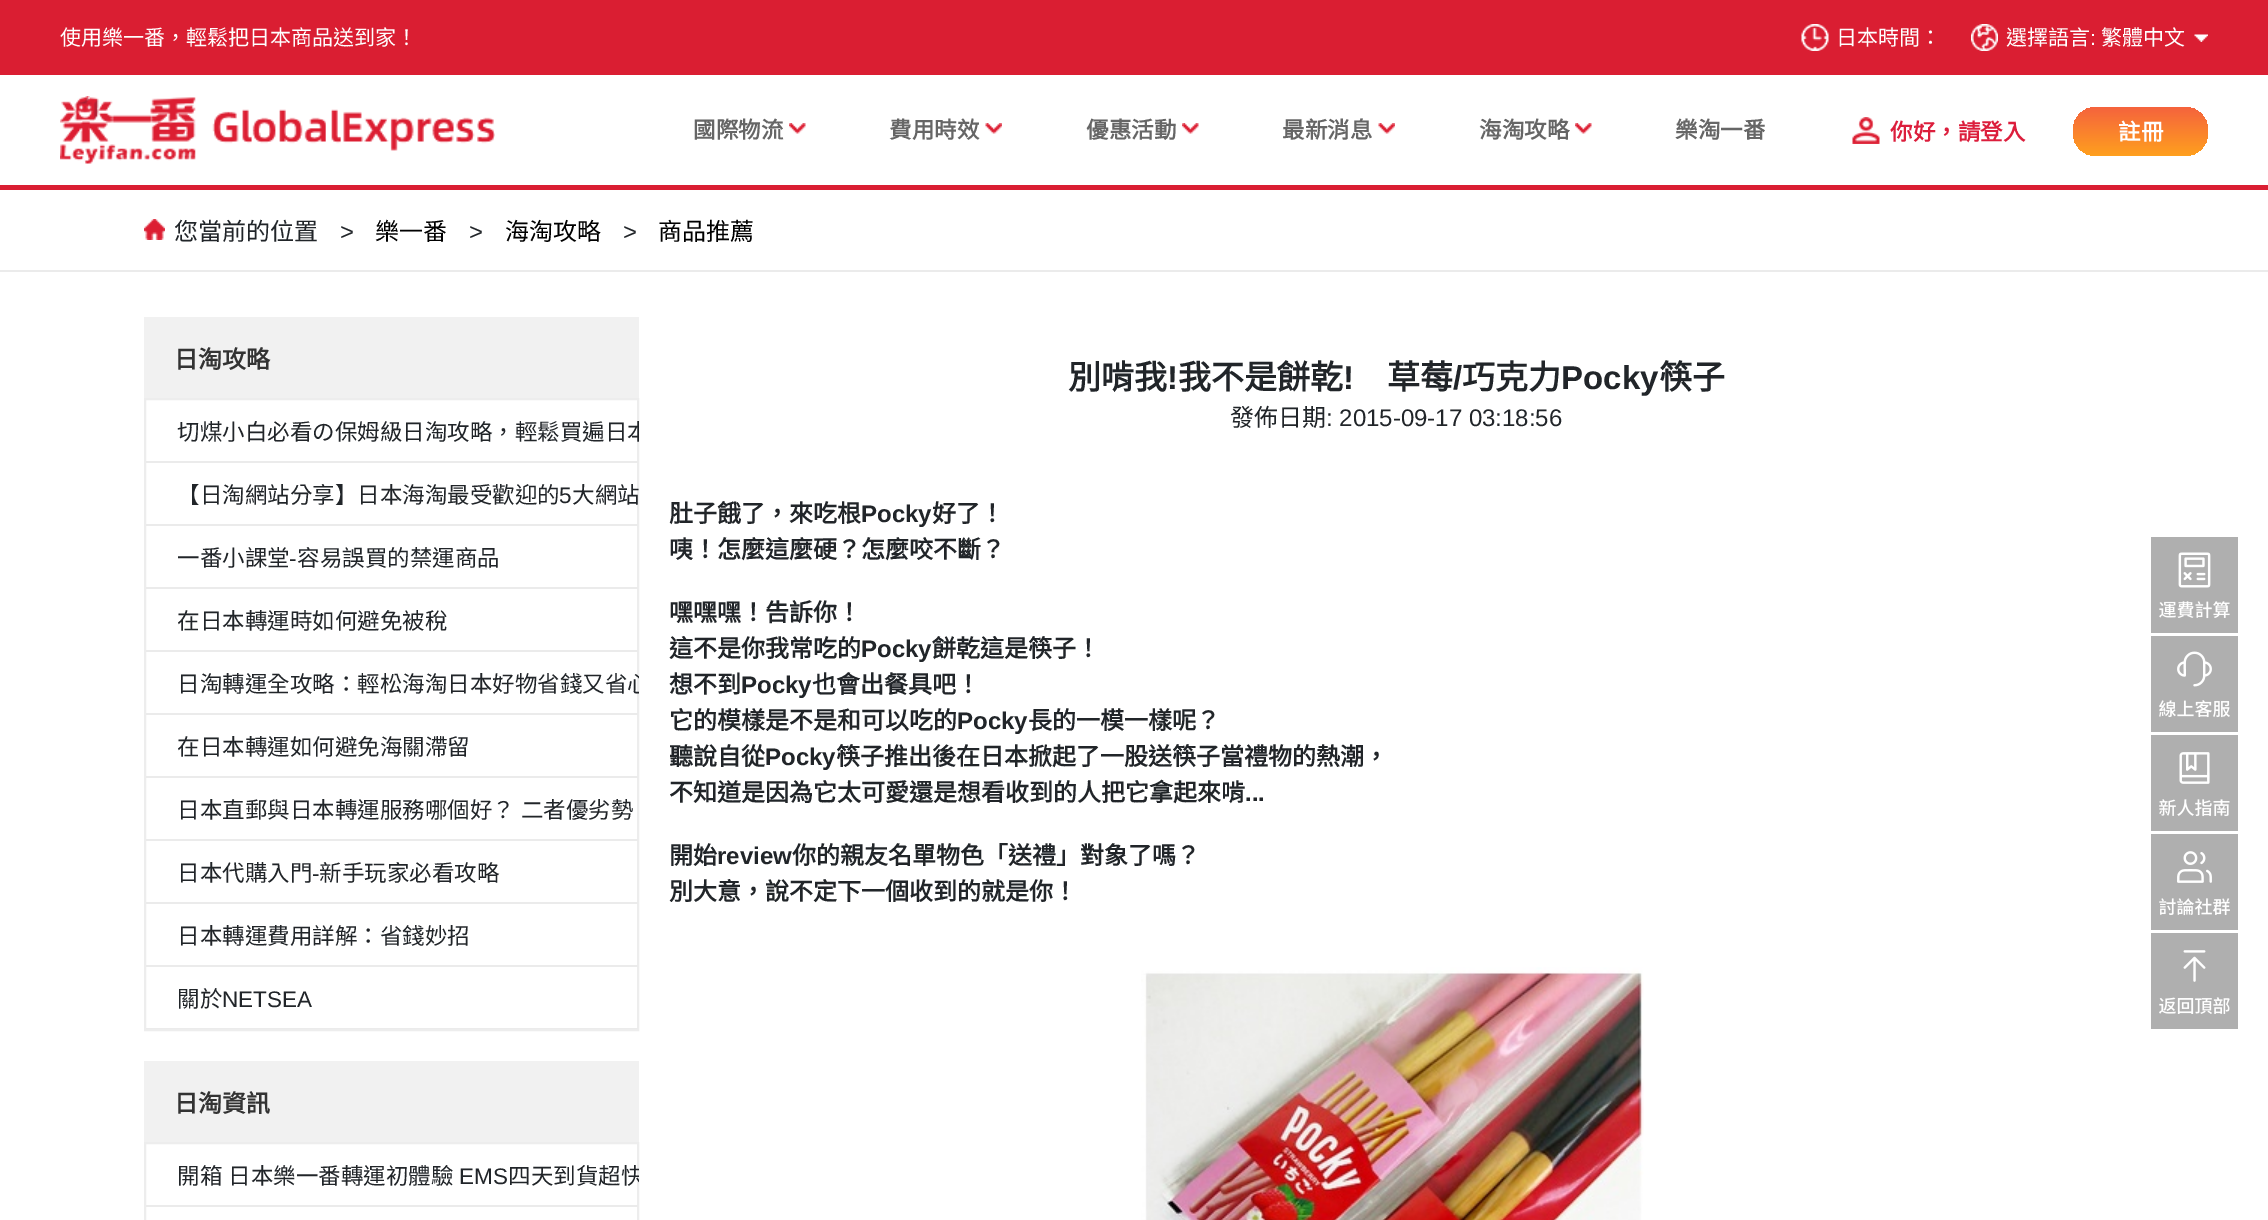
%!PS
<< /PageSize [2268 1220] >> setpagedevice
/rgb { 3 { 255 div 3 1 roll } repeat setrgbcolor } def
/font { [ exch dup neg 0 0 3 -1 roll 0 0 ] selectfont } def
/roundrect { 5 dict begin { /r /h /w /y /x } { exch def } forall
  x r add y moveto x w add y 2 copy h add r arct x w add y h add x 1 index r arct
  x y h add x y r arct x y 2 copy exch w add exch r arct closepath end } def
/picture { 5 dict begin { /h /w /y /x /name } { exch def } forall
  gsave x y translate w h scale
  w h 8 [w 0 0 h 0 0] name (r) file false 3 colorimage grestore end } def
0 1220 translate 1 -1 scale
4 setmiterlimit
255 255 255 rgb
0 0 2268 1220 rectfill
218 30 50 rgb
0 0 2268 75 rectfill
(img/1.rgb) 1801 24 28 27 picture
(img/2.rgb) 2194 34 14 8 picture
(img/3.rgb) 1971 24 27 27 picture
(img/4.rgb) 60 96 435 68 picture
(img/5.rgb) 789 123 17 11 picture
(img/6.rgb) 985 123 17 11 picture
(img/7.rgb) 1182 123 17 11 picture
(img/8.rgb) 1378 123 17 11 picture
(img/5.rgb) 1575 123 17 11 picture
(img/9.rgb) 1852 117 28 27 picture
gsave 2073 107 135 49 23 roundrect clip newpath
<< /ShadingType 2 /ColorSpace /DeviceRGB /Coords [2141 107 2141 156] /Extend [true true] /Function << /FunctionType 2 /Domain [0 1] /C0 [0.961 0.388 0.239] /C1 [1 0.627 0.118] /N 1 >> >> shfill grestore
0 185 2268 5 rectfill
235 235 235 rgb
0 270 2268 2 rectfill
(img/10.rgb) 144 219 21 21 picture
241 241 241 rgb
144 317 495 81 rectfill
237 237 237 rgb
2 setlinewidth
145 399 493 631 rectstroke
[
  [146 461 492 2 235 235 235]
  [146 524 492 2 235 235 235]
  [146 587 492 2 235 235 235]
  [146 650 492 2 235 235 235]
  [146 713 492 2 235 235 235]
  [146 776 492 2 235 235 235]
  [146 839 492 2 235 235 235]
  [146 902 492 2 235 235 235]
  [146 965 492 2 235 235 235]
  [146 1028 492 1 235 235 235]
  [144 1061 495 81 241 241 241]
] { aload pop rgb rectfill } forall
237 237 237 rgb
145 1143 493 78 rectstroke
235 235 235 rgb
146 1205 492 2 rectfill
(img/11.rgb) 1141 967 503 253 picture
(img/12.rgb) 2151 537 87 96 picture
(img/13.rgb) 2151 636 87 96 picture
(img/14.rgb) 2151 735 87 96 picture
(img/15.rgb) 2151 834 87 96 picture
(img/16.rgb) 2151 933 87 96 picture
/NotoSansCJKTC-Regular 21 font
255 255 255 rgb
[
  [(使用樂一番，輕鬆把日本商品送到家！) 60 45]
  [(日本時間：) 1836 45]
  [(選擇語言) 2006 45]
] { aload pop moveto show } forall
/LiberationSans-Regular 21 font
2090 45 moveto (:) show
/NotoSansCJKTC-Regular 21 font
2101 45 moveto (繁體中文) show
/NotoSansCJKTC-Bold 22.5 font
102 102 102 rgb
[
  [(國際物流) 693 138]
  [(費用時效) 889 138]
  [(優惠活動) 1086 138]
  [(最新消息) 1282 138]
  [(海淘攻略) 1479 138]
  [(樂淘一番) 1675 138]
] { aload pop moveto show } forall
220 30 60 rgb
1890 140 moveto (你好，請登入) show
255 255 255 rgb
2118 140 moveto (註冊) show
/NotoSansCJKTC-Regular 24 font
33 37 41 rgb
174 240 moveto (您當前的位置) show
/LiberationSans-Regular 24 font
340 240 moveto (>) show
/NotoSansCJKTC-Regular 24 font
0 0 0 rgb
375 240 moveto (樂一番) show
/LiberationSans-Regular 24 font
33 37 41 rgb
469 240 moveto (>) show
/NotoSansCJKTC-Regular 24 font
0 0 0 rgb
505 240 moveto (海淘攻略) show
/LiberationSans-Regular 24 font
33 37 41 rgb
623 240 moveto (>) show
/NotoSansCJKTC-Regular 24 font
0 0 0 rgb
658 240 moveto (商品推薦) show
/NotoSansCJKTC-Bold 24 font
51 51 51 rgb
174 368 moveto (日淘攻略) show
gsave
144 317 495 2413 rectclip
/NotoSansCJKTC-Regular 22.5 font
33 37 41 rgb
177 440 moveto (切煤小白必看の保姆級日淘攻略，輕鬆買遍日本) show
grestore
/NotoSansCJKTC-Regular 22.5 font
33 37 41 rgb
177 503 moveto (【日淘網站分享】日本海淘最受歡迎的) show
/LiberationSans-Regular 22.5 font
559 503 moveto (5) show
/NotoSansCJKTC-Regular 22.5 font
572 503 moveto (大網站) show
177 566 moveto (一番小課堂) show
/LiberationSans-Regular 22.5 font
289 566 moveto (-) show
/NotoSansCJKTC-Regular 22.5 font
297 566 moveto (容易誤買的禁運商品) show
177 629 moveto (在日本轉運時如何避免被稅) show
gsave
144 317 495 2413 rectclip
177 692 moveto (日淘轉運全攻略：輕松海淘日本好物省錢又省心) show
grestore
177 755 moveto (在日本轉運如何避免海關滯留) show
177 818 moveto 1 0 32 (日本直郵與日本轉運服務哪個好？ 二者優劣勢) widthshow
177 881 moveto (日本代購入門) show
/LiberationSans-Regular 22.5 font
312 881 moveto (-) show
/NotoSansCJKTC-Regular 22.5 font
[
  [(新手玩家必看攻略) 319 881]
  [(日本轉運費用詳解：省錢妙招) 177 944]
  [(關於) 177 1007]
] { aload pop moveto show } forall
/LiberationSans-Regular 22.5 font
222 1007 moveto (NETSEA) show
/NotoSansCJKTC-Bold 24 font
51 51 51 rgb
174 1112 moveto (日淘資訊) show
/NotoSansCJKTC-Regular 22.5 font
33 37 41 rgb
177 1184 moveto 1 0 32 (開箱 日本樂一番轉運初體驗) widthshow
/LiberationSans-Regular 22.5 font
459 1184 moveto (EMS) show
gsave
144 317 495 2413 rectclip
/NotoSansCJKTC-Regular 22.5 font
508 1184 moveto (四天到貨超快) show
grestore
/NotoSansCJKTC-Bold 33 font
1068 389 moveto (別啃我) show
/LiberationSans-Bold 33 font
1167 389 moveto (!) show
/NotoSansCJKTC-Bold 33 font
1178 389 moveto (我不是餅乾) show
/LiberationSans-Bold 33 font
1343 389 moveto (!) show
/NotoSansCJKTC-Bold 33 font
1387 389 moveto (草莓) show
/LiberationSans-Bold 33 font
1453 389 moveto (/) show
/NotoSansCJKTC-Bold 33 font
1462 389 moveto (巧克力) show
/LiberationSans-Bold 33 font
1561 389 moveto (Pocky) show
/NotoSansCJKTC-Bold 33 font
1659 389 moveto (筷子) show
/NotoSansCJKTC-Regular 24 font
1230 426 moveto (發佈日期) show
/LiberationSans-Regular 24 font
1326 426 moveto (: 2015-09-17 03:18:56) show
/NotoSansCJKTC-Bold 24 font
669 522 moveto (肚子餓了，來吃根) show
/LiberationSans-Bold 24 font
861 522 moveto (Pocky) show
/NotoSansCJKTC-Bold 24 font
[
  [(好了！) 932 522]
  [(咦！怎麼這麼硬？怎麼咬不斷？) 669 558]
  [(嘿嘿嘿！告訴你！) 669 621]
  [(這不是你我常吃的) 669 657]
] { aload pop moveto show } forall
/LiberationSans-Bold 24 font
861 657 moveto (Pocky) show
/NotoSansCJKTC-Bold 24 font
932 657 moveto (餅乾這是筷子！) show
669 693 moveto (想不到) show
/LiberationSans-Bold 24 font
741 693 moveto (Pocky) show
/NotoSansCJKTC-Bold 24 font
812 693 moveto (也會出餐具吧！) show
669 729 moveto (它的模樣是不是和可以吃的) show
/LiberationSans-Bold 24 font
957 729 moveto (Pocky) show
/NotoSansCJKTC-Bold 24 font
1028 729 moveto (長的一模一樣呢？) show
669 765 moveto (聽說自從) show
/LiberationSans-Bold 24 font
765 765 moveto (Pocky) show
/NotoSansCJKTC-Bold 24 font
836 765 moveto (筷子推出後在日本掀起了一股送筷子當禮物的熱潮，) show
669 801 moveto (不知道是因為它太可愛還是想看收到的人把它拿起來啃) show
/LiberationSans-Bold 24 font
1245 801 moveto (...) show
/NotoSansCJKTC-Bold 24 font
669 864 moveto (開始) show
/LiberationSans-Bold 24 font
717 864 moveto (review) show
/NotoSansCJKTC-Bold 24 font
792 864 moveto (你的親友名單物色「送禮」對象了嗎？) show
669 900 moveto (別大意，說不定下一個收到的就是你！) show
showpage
